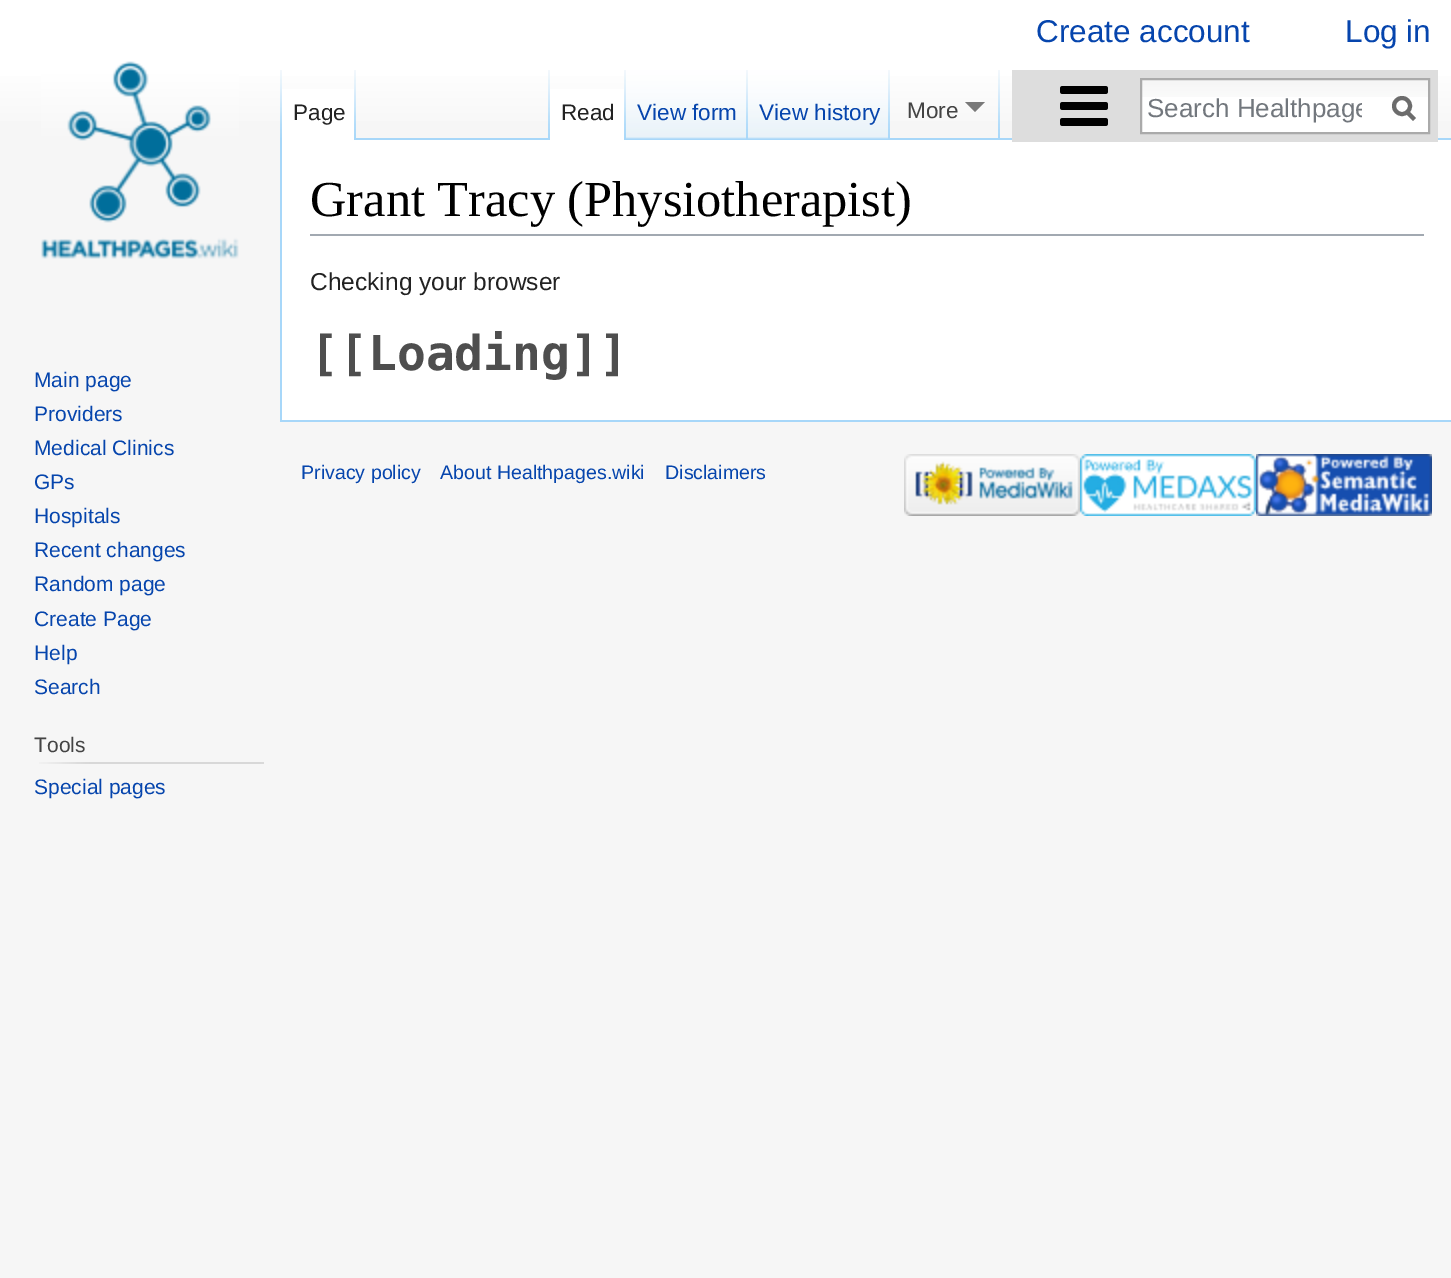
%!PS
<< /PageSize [1451 1278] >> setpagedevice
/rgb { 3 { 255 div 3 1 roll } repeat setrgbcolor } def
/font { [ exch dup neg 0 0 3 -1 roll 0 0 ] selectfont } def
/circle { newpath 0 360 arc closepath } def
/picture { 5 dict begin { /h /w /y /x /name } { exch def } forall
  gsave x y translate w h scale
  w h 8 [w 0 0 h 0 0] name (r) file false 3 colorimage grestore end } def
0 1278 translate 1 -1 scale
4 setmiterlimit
246 246 246 rgb
0 0 1451 1278 rectfill
gsave 0 0 moveto 1451 0 lineto 1451 121 lineto 0 121 lineto closepath clip newpath
<< /ShadingType 2 /ColorSpace /DeviceRGB /Coords [726 0 726 140] /Extend [true true] /Function << /FunctionType 3 /Domain [0 1] /Functions [<< /FunctionType 2 /Domain [0 1] /C0 [1 1 1] /C1 [1 1 1] /N 1 >> << /FunctionType 2 /Domain [0 1] /C0 [1 1 1] /C1 [0.965 0.965 0.965] /N 1 >>] /Bounds [0.5] /Encode [0 1 0 1] >> >> shfill grestore
(img/1.rgb) 280 70 2 68 picture
255 255 255 rgb
282 89 72 51 rectfill
(img/2.rgb) 354 70 2 70 picture
(img/1.rgb) 548 70 2 68 picture
167 215 249 rgb
356 138 1095 2 rectfill
255 255 255 rgb
550 89 74 51 rectfill
(img/2.rgb) 624 70 2 70 picture
(img/3.rgb) 626 70 122 70 picture
(img/4.rgb) 746 70 2 69 picture
(img/5.rgb) 748 70 142 70 picture
(img/4.rgb) 888 70 2 69 picture
(img/1.rgb) 998 70 2 68 picture
121 121 121 rgb
985 102 moveto 975 112 lineto 965 102 lineto closepath fill
255 255 255 rgb
282 140 1169 280 rectfill
221 221 221 rgb
1012 70 426 72 rectfill
(img/6.rgb) 1060 86 48 40 picture
255 255 255 rgb
1142 97 286 35 rectfill
(img/7.rgb) 1142 80 286 17 picture
170 170 170 rgb
2 setlinewidth
1141 79 288 54 rectstroke
108 108 108 rgb
4 setlinewidth
1414.5 119.5 moveto 1406.5 111.5 lineto stroke
1402 106 8 circle stroke
(img/8.rgb) 41 61 198 198 picture
(img/9.rgb) 39 762 225 2 picture
[
  [280 420 1171 2 167 215 249]
  [280 138 2 284 167 215 249]
  [310 234 1114 2 162 169 177]
] { aload pop rgb rectfill } forall
(img/10.rgb) 904 454 176 62 picture
(img/11.rgb) 1080 454 176 62 picture
(img/12.rgb) 1256 454 176 62 picture
/LiberationSans-Regular 31.5 font
6 69 173 rgb
1036 42 moveto (Create account) show
1345 42 moveto (Log in) show
/LiberationSans-Regular 22.5 font
34 34 34 rgb
293 120 moveto (Page) show
561 120 moveto (Read) show
6 69 173 rgb
637 120 moveto (View form) show
759 120 moveto (View history) show
68 68 68 rgb
907 118 moveto (More) show
gsave
1146 94 216 30 rectclip
/LiberationSans-Regular 26 font
114 119 125 rgb
1147 117 moveto (Search Healthpage) show
grestore
/LiberationSans-Regular 21 font
6 69 173 rgb
[
  [(Main page) 34 387]
  [(Providers) 34 421]
  [(Medical Clinics) 34 455]
  [(GPs) 34 489]
  [(Hospitals) 34 523]
  [(Recent changes) 34 557]
  [(Random page) 34 591]
  [(Create Page) 34 626]
  [(Help) 34 660]
  [(Search) 34 694]
] { aload pop moveto show } forall
68 68 68 rgb
34 752 moveto (Tools) show
6 69 173 rgb
34 794 moveto (Special pages) show
/LiberationSerif-Regular 50.4 font
0 0 0 rgb
310 216 moveto (Grant Tracy \(Physiotherapist\)) show
/LiberationSans-Regular 24.5 font
34 34 34 rgb
310 290 moveto (Checking your browser) show
/DejaVuSansMono-Bold 48 font
78 78 78 rgb
310 370 moveto ([[Loading]]) show
/LiberationSans-Regular 19.6 font
6 69 173 rgb
[
  [(Privacy policy) 301 479]
  [(About Healthpages.wiki) 440 479]
  [(Disclaimers) 665 479]
] { aload pop moveto show } forall
showpage
